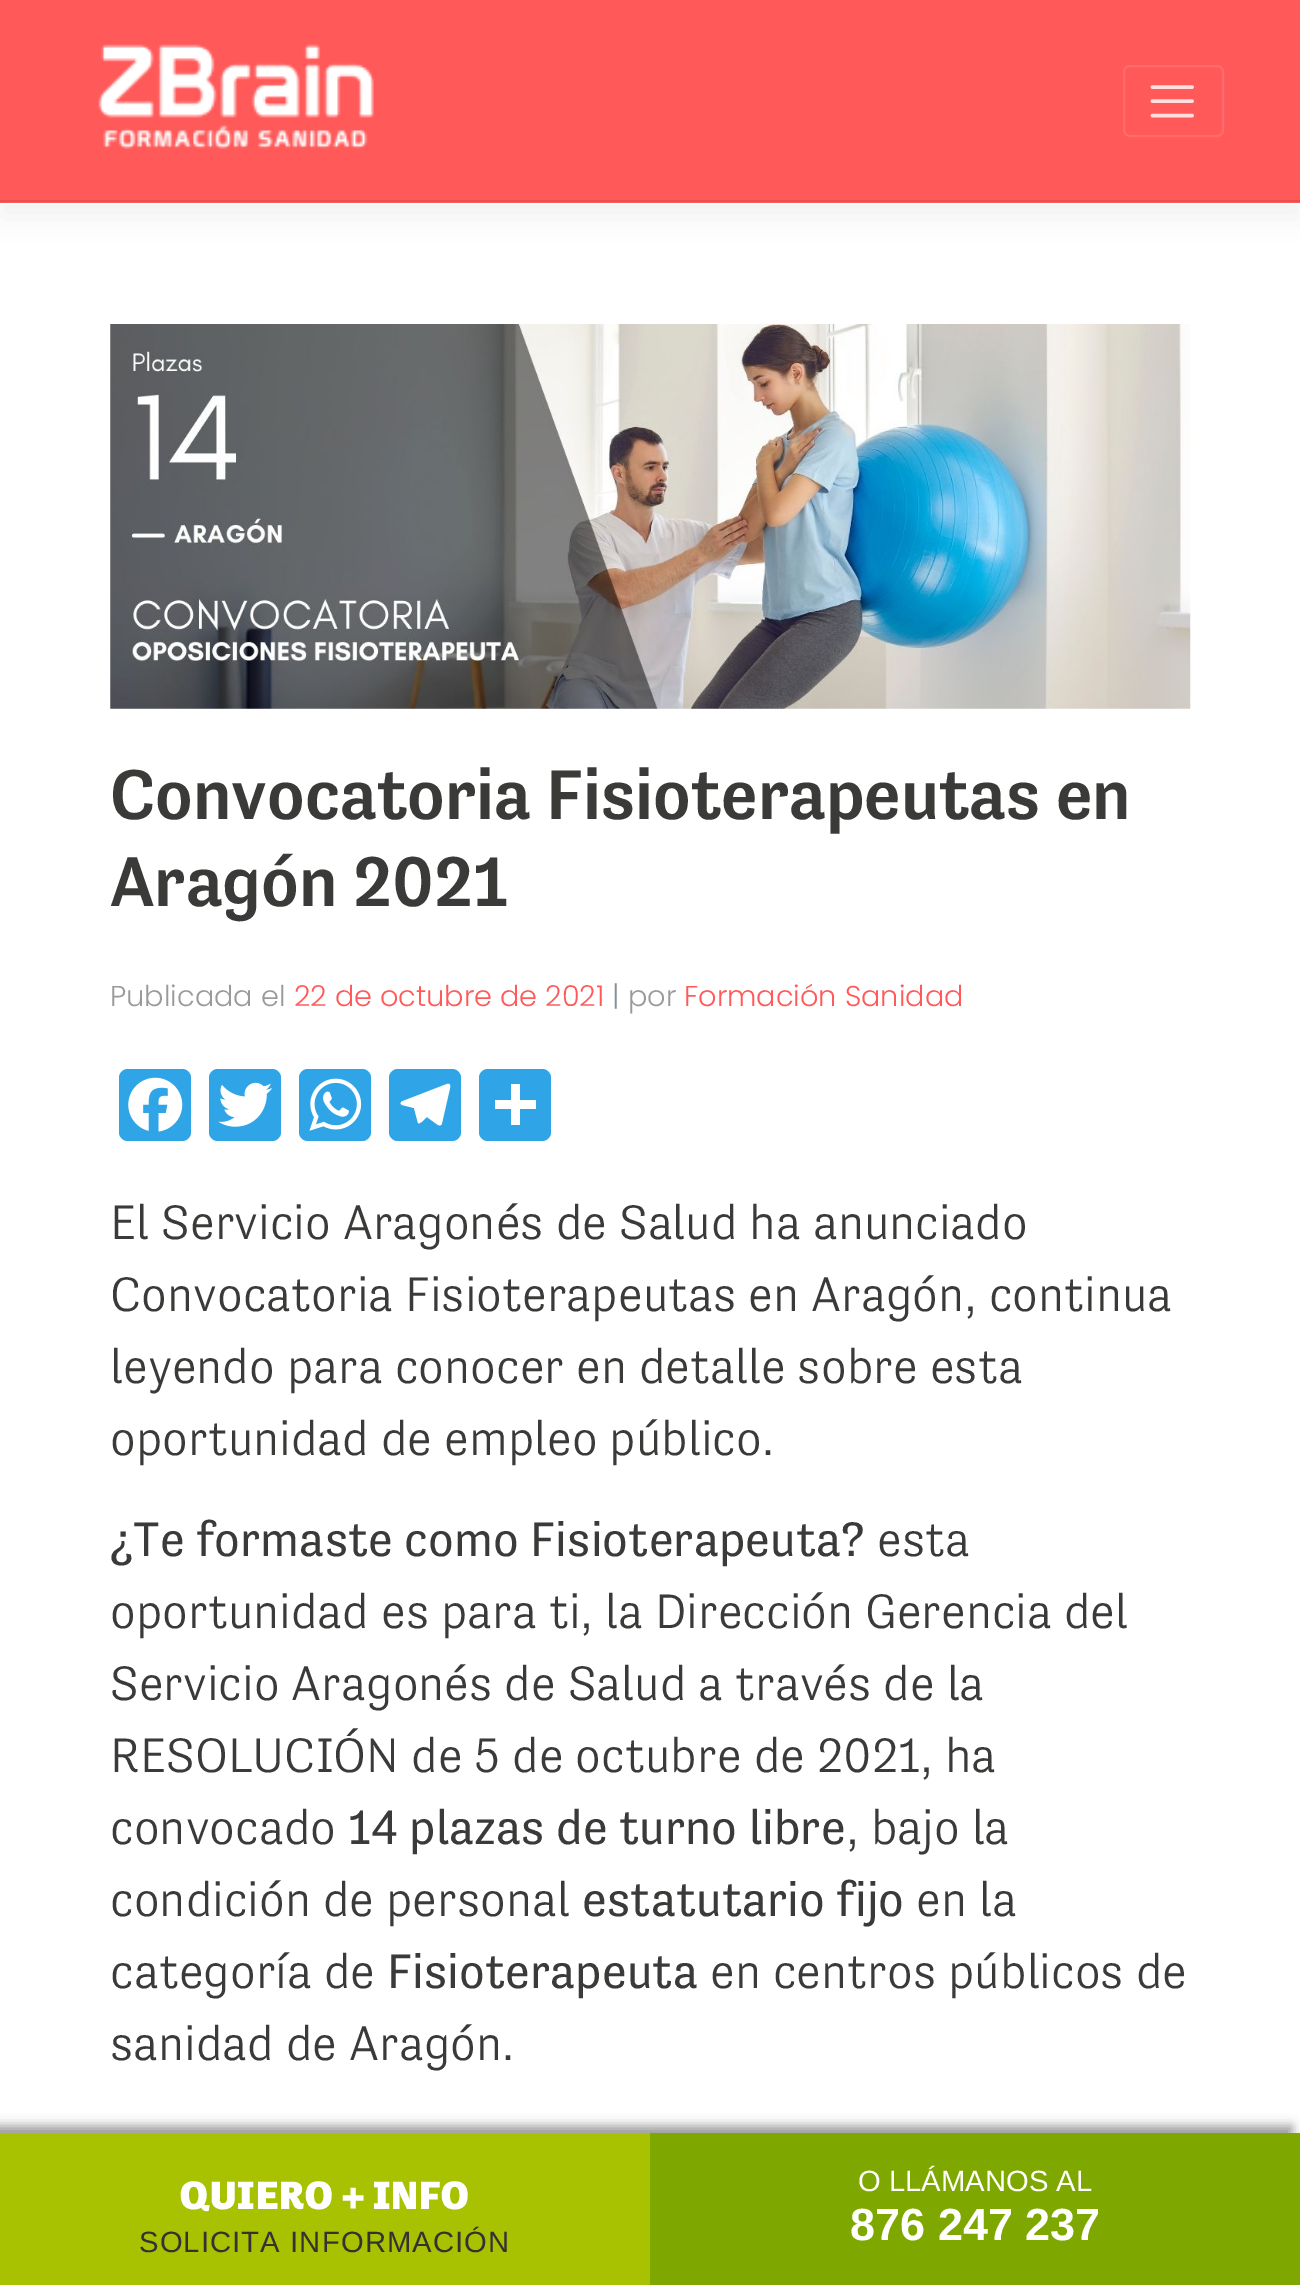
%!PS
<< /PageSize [1300 2285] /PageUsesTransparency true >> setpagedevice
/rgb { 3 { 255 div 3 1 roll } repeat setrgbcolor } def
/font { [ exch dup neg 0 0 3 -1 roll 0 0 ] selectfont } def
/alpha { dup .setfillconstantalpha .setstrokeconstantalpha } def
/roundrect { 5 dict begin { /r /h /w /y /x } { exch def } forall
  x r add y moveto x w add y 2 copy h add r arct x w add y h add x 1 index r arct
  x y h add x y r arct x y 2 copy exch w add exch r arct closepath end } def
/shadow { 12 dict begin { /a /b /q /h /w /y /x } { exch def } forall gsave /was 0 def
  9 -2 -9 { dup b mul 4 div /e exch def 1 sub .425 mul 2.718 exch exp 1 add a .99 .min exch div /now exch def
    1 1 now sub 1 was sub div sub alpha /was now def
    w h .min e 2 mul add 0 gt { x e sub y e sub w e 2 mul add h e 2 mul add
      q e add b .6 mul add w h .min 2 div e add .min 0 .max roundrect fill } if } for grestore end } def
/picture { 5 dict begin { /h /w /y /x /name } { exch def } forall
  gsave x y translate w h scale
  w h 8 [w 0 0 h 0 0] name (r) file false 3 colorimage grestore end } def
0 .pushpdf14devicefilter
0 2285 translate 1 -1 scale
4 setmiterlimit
255 255 255 rgb
0 0 1300 2285 rectfill
0 0 0 rgb
0 14 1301 204 0 14.5 0.05 shadow
[
  [0 0 1300 203 255 89 89]
  [0 200 1300 2 230 80 80]
  [0 203 1300 2 255 255 255]
] { aload pop rgb rectfill } forall
(img/1.rgb) 98 44 276 105 picture
255 106 106 rgb
2 setlinewidth
1124 66 99 70 6 roundrect stroke
255 222 222 rgb
3.6 setlinewidth
1 setlinecap
1152.5 87 moveto 1192 87 lineto 1152.5 101 moveto 1192 101 lineto 1152.5 115.5 moveto 1192 115.5 lineto stroke
(img/2.rgb) 110 324 1081 385 picture
47 164 231 rgb
119 1069 72 72 9 roundrect fill
(img/3.rgb) 128 1077 55 55 picture
209 1069 72 72 9 roundrect fill
(img/4.rgb) 218 1082 55 45 picture
299 1069 72 72 9 roundrect fill
(img/5.rgb) 309 1078 53 53 picture
389 1069 72 72 9 roundrect fill
255 255 255 rgb
447 1084 moveto 403 1101 lineto 400 1102 400 1104 402 1105 curveto 414 1108 lineto 418 1123 lineto 420 1125 426 1117 427 1117 curveto 438 1125 lineto 440 1126 442 1125 442 1123 curveto 450 1088 lineto 451 1085 449 1083 447 1084 curveto closepath fill
47 164 231 rgb
479 1069 72 72 9 roundrect fill
255 255 255 rgb
511 1084 9 41 rectfill
495 1100 41 9 rectfill
50 50 50 rgb
-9 2126 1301 153 0 5.5 0.5 shadow
168 193 0 rgb
0 2133 650 152 rectfill
126 167 0 rgb
650 2133 650 152 rectfill
/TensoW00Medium-Medium 72 font
58 58 57 rgb
110 819 moveto (Convocatoria Fisioterapeutas en) show
110 906 moveto (Aragón 2021) show
/Poppins-Light 28.75 font
154 154 154 rgb
110 1006 moveto (Publicada el) show
255 89 89 rgb
294 1006 moveto (22 de octubre de 2021) show
134 142 150 rgb
612 1006 moveto (|) show
154 154 154 rgb
628 1006 moveto (por) show
255 89 89 rgb
684 1006 moveto (Formación Sanidad) show
/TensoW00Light-Light 49.5 font
58 58 57 rgb
[
  [(El Servicio Aragonés de Salud ha anunciado) 110 1239]
  [(Convocatoria Fisioterapeutas en Aragón, continua) 110 1311]
  [(leyendo para conocer en detalle sobre esta) 110 1383]
  [(oportunidad de empleo público.) 110 1455]
] { aload pop moveto show } forall
/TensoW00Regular-Regular 49.5 font
110 1556 moveto (¿Te formaste como Fisioterapeuta?) show
/TensoW00Light-Light 49.5 font
[
  [(esta) 877 1556]
  [(oportunidad es para ti, la Dirección Gerencia del) 110 1628]
  [(Servicio Aragonés de Salud a través de la) 110 1700]
  [(RESOLUCIÓN de 5 de octubre de 2021, ha) 110 1772]
  [(convocado) 110 1844]
] { aload pop moveto show } forall
/TensoW00Regular-Regular 49.5 font
348 1844 moveto (14 plazas de turno libre) show
/TensoW00Light-Light 49.5 font
846 1844 moveto (, bajo la) show
110 1916 moveto (condición de personal) show
/TensoW00Regular-Regular 49.5 font
582 1916 moveto (estatutario fijo) show
/TensoW00Light-Light 49.5 font
916 1916 moveto (en la) show
110 1988 moveto (categoría de) show
/TensoW00Regular-Regular 49.5 font
387 1988 moveto (Fisioterapeuta) show
/TensoW00Light-Light 49.5 font
710 1988 moveto (en centros públicos de) show
110 2060 moveto (sanidad de Aragón.) show
/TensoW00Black-Black 40.5 font
255 255 255 rgb
180 2209 moveto 1.1 0 (QUIERO + INFO) ashow
/LiberationSans-Regular 29.25 font
51 51 51 rgb
139 2252 moveto 1.1 0 (SOLICITA INFORMACIÓN) ashow
255 255 255 rgb
858 2191 moveto (O LLÁMANOS AL) show
/LiberationSans-Bold 45 font
850 2240 moveto (876 247 237) show
.poppdf14devicefilter showpage
